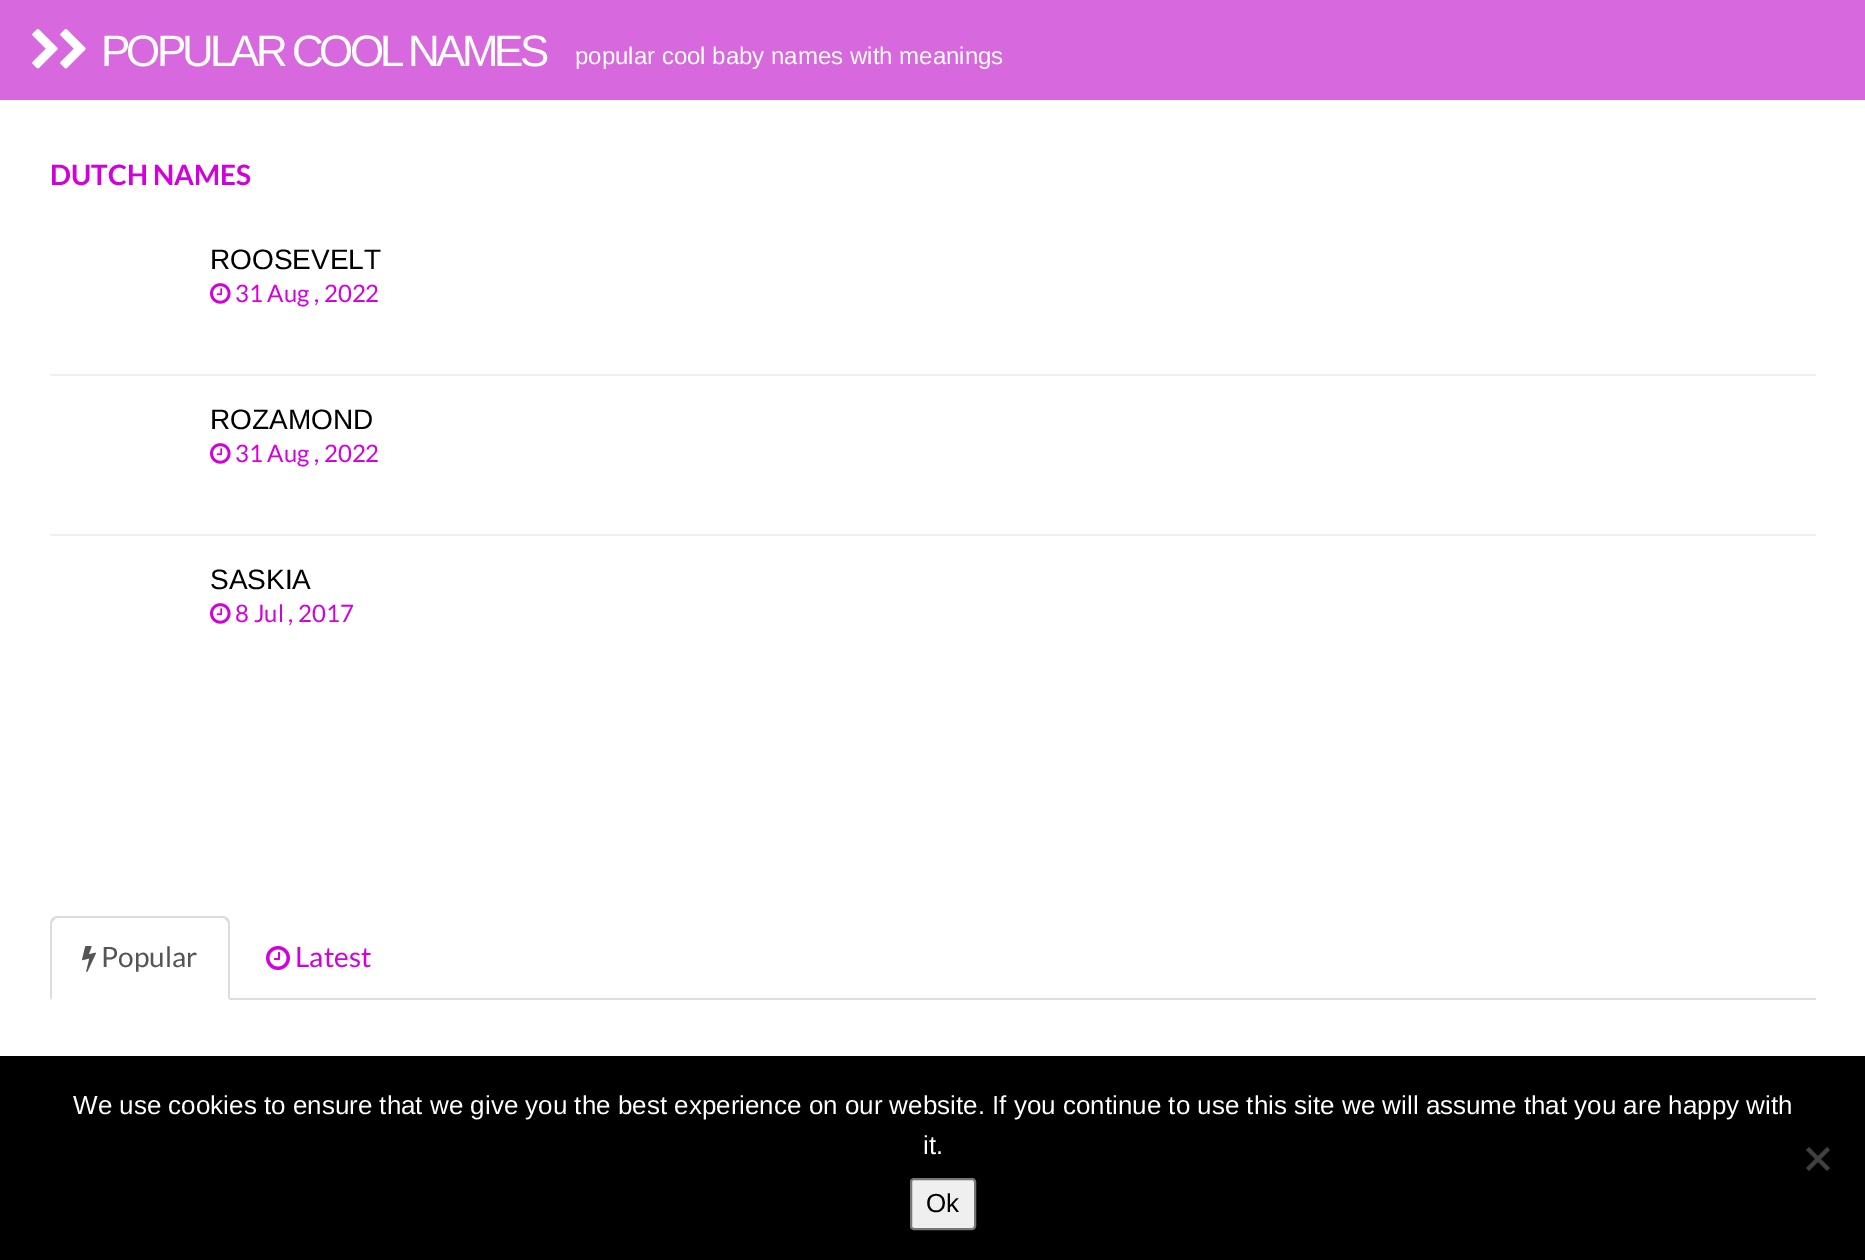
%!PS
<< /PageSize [1865 1260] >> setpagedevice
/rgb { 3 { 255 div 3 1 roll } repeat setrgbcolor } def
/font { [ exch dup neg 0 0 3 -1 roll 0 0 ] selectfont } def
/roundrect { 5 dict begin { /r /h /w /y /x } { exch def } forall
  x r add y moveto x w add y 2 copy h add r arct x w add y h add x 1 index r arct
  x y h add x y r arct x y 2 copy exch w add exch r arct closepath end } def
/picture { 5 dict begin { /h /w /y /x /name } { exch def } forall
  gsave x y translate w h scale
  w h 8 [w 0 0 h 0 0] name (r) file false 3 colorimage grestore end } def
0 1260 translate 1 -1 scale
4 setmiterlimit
255 255 255 rgb
0 0 1865 1260 rectfill
215 104 221 rgb
0 0 1865 100 rectfill
(img/1.rgb) 32 29 26 40 picture
(img/1.rgb) 60 29 26 40 picture
240 239 239 rgb
50 374 1766 2 rectfill
(img/2.rgb) 210 283 21 21 picture
50 534 1766 2 rectfill
(img/2.rgb) 210 443 21 21 picture
(img/2.rgb) 210 603 21 21 picture
221 221 221 rgb
230 998 1586 2 rectfill
58 916 moveto 56 916 54 917 52 918 curveto 54 920 lineto 55 919 56 918 58 918 curveto 222 918 lineto 224 918 225 919 226 920 curveto 228 918 lineto 226 917 224 916 222 916 curveto closepath fill
230 1000 moveto 230 924 lineto 230 922 229 920 228 918 curveto 226 920 lineto 228 923 lineto 228 998 lineto closepath fill
50 1000 moveto 52 998 lineto 52 923 lineto 54 920 lineto 52 918 lineto 51 920 50 922 50 924 curveto closepath fill
(img/3.rgb) 82 946 14 26 picture
(img/4.rgb) 266 946 24 24 picture
0 0 0 rgb
0 1056 1865 204 rectfill
64 64 64 rgb
1827 1147 moveto 1830 1150 lineto 1809 1171 lineto 1806 1168 lineto closepath fill
1806 1150 moveto 1809 1147 lineto 1830 1168 lineto 1827 1171 lineto closepath fill
239 239 239 rgb
911 1179 64 50 3 roundrect gsave fill grestore
118 118 118 rgb
2 setlinewidth
stroke
/LiberationSans-Regular 44 font
255 255 255 rgb
101 66 moveto -4 0 (POPULAR COOL NAMES) ashow
/LiberationSans-Regular 24 font
575 64 moveto (popular cool baby names with meanings) show
/Lato-Bold 28 font
210 0 221 rgb
50 185 moveto (DUTCH NAMES) show
/LiberationSans-Regular 28 font
0 0 0 rgb
210 269 moveto (ROOSEVELT) show
/Lato-Regular 24 font
210 0 221 rgb
235 302 moveto (31 Aug , 2022) show
/LiberationSans-Regular 28 font
0 0 0 rgb
210 429 moveto (ROZAMOND) show
/Lato-Regular 24 font
210 0 221 rgb
235 462 moveto (31 Aug , 2022) show
/LiberationSans-Regular 28 font
0 0 0 rgb
210 589 moveto (SASKIA) show
/Lato-Regular 24 font
210 0 221 rgb
235 622 moveto (8 Jul , 2017) show
/Lato-Regular 28 font
85 85 85 rgb
101 967 moveto (Popular) show
210 0 221 rgb
295 967 moveto (Latest) show
/LiberationSans-Regular 26 font
255 255 255 rgb
73 1114 moveto (We use cookies to ensure that we give you the best experience on our website. If you continue to use this site we will assume that you are happy with) show
923 1154 moveto (it.) show
0 0 0 rgb
926 1212 moveto (Ok) show
showpage
